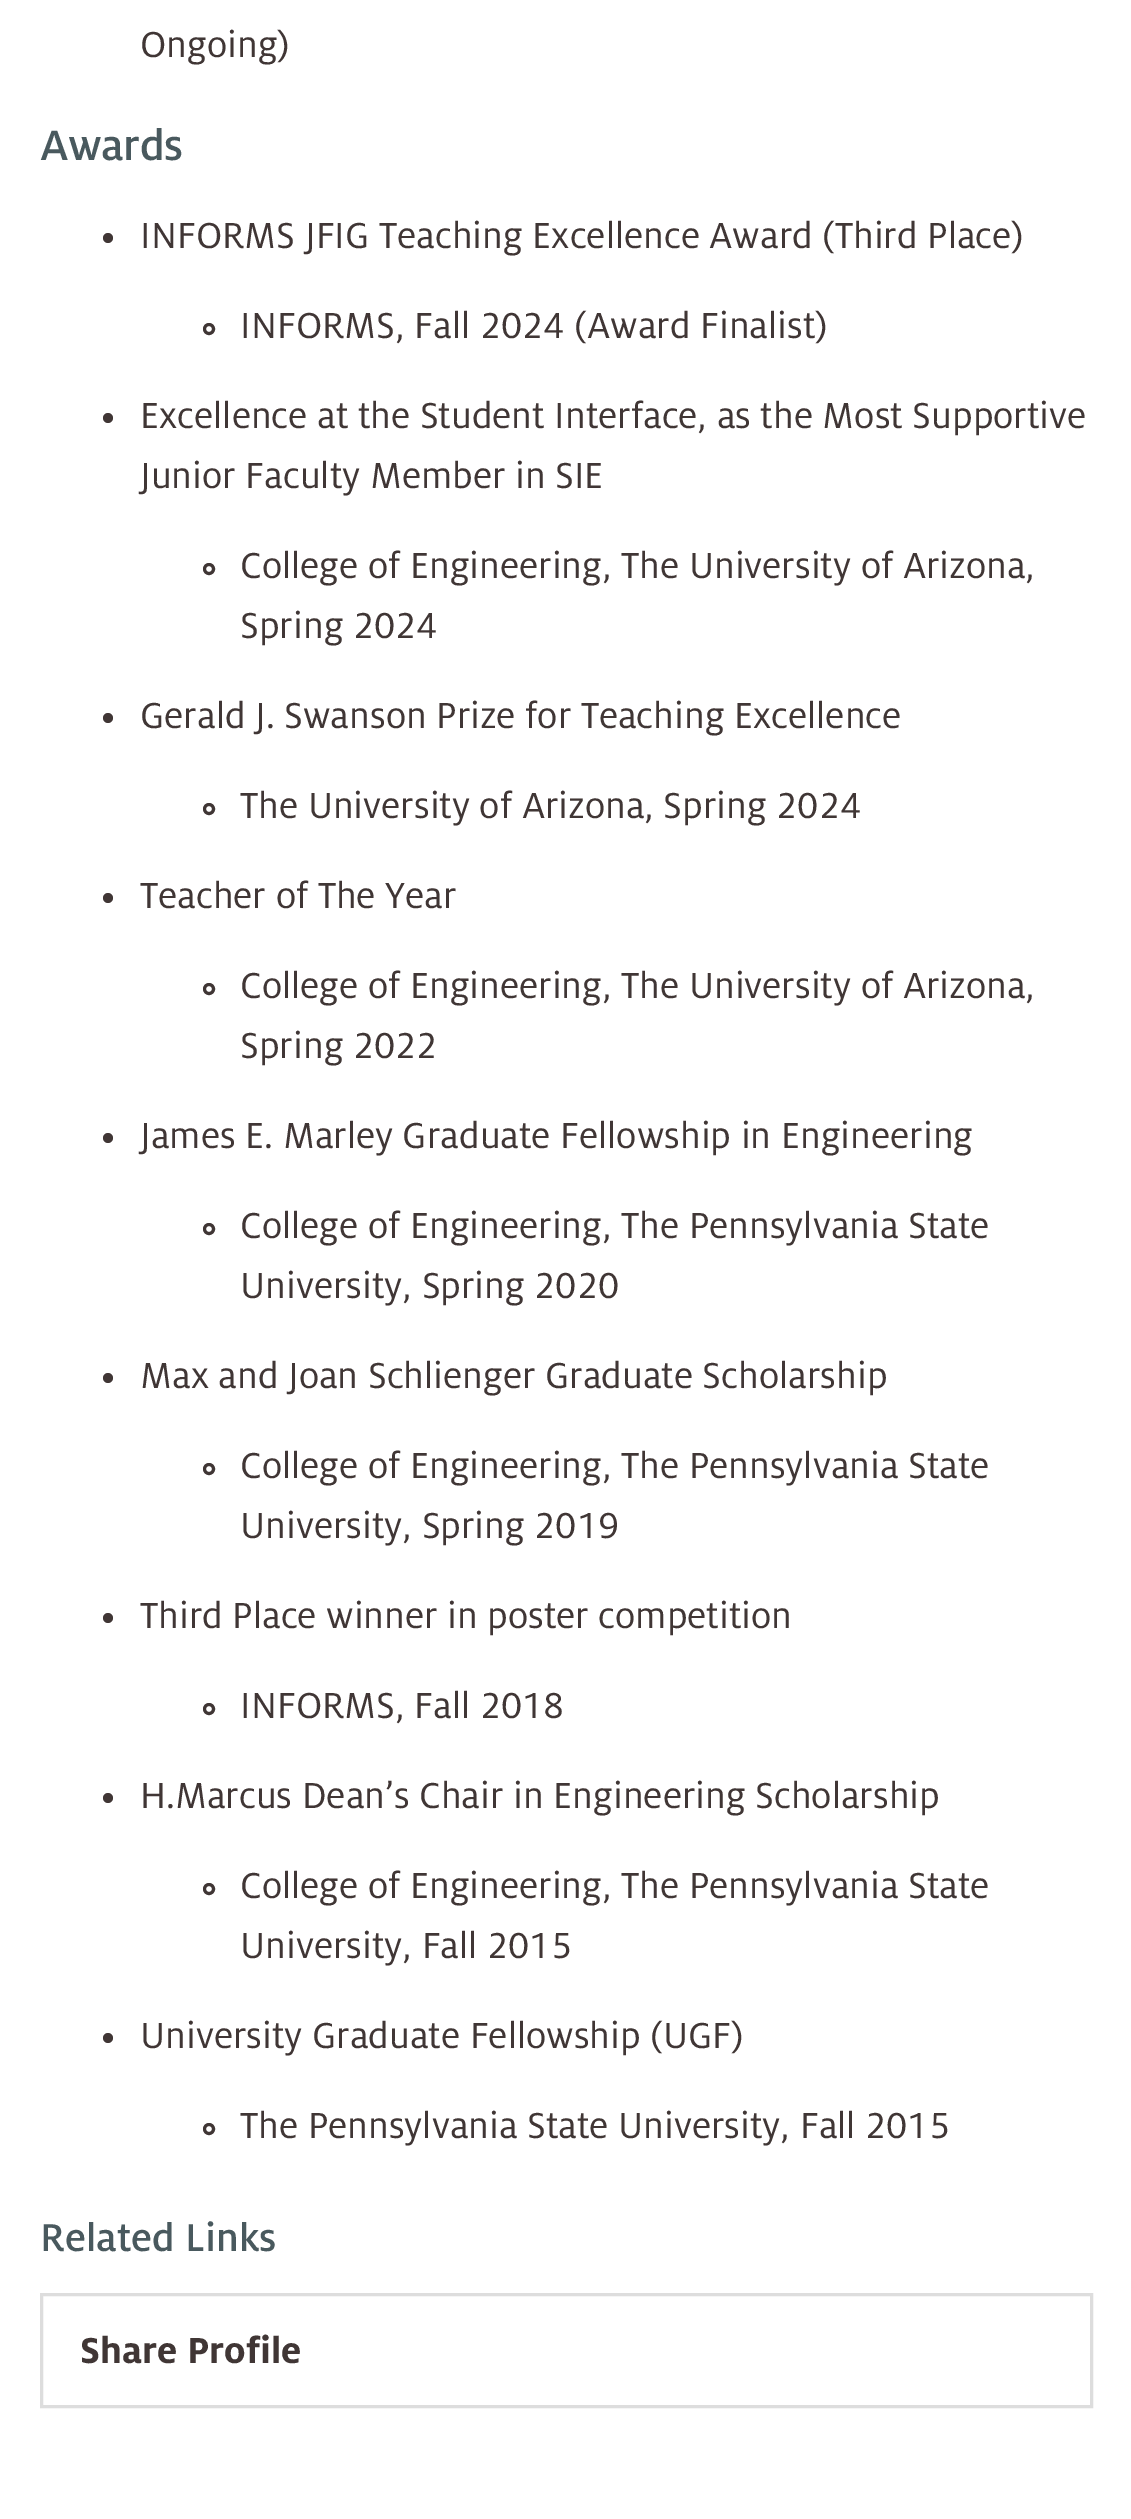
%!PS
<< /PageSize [1131 2519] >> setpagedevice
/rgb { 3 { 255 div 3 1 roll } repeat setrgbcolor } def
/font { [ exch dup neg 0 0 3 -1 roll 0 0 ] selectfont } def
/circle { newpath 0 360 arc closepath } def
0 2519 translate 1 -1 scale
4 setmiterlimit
255 255 255 rgb
0 0 1131 2519 rectfill
64 54 53 rgb
108 238 5 circle fill
3 setlinewidth
209 329 4.5 circle stroke
108 418 5 circle fill
209 569 4.5 circle stroke
108 718 5 circle fill
209 809 4.5 circle stroke
108 898 5 circle fill
209 989 4.5 circle stroke
108 1138 5 circle fill
209 1229 4.5 circle stroke
108 1378 5 circle fill
209 1469 4.5 circle stroke
108 1618 5 circle fill
209 1709 4.5 circle stroke
108 1798 5 circle fill
209 1889 4.5 circle stroke
108 2038 5 circle fill
209 2129 4.5 circle stroke
221 221 221 rgb
41.5 2294.5 1050 112 rectstroke
/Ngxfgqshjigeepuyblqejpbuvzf-Regular 40 font
64 54 53 rgb
140 57 moveto (Ongoing\)) show
/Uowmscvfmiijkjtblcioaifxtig-Medium 47 font
73 89 94 rgb
40 160 moveto -0.5 0 (Awards) ashow
/Ngxfgqshjigeepuyblqejpbuvzf-Regular 40 font
64 54 53 rgb
[
  [(INFORMS JFIG Teaching Excellence Award \(Third Place\)) 140 248]
  [(INFORMS, Fall 2024 \(Award Finalist\)) 240 338]
  [(Excellence at the Student Interface, as the Most Supportive) 140 428]
  [(Junior Faculty Member in SIE) 140 488]
  [(College of Engineering, The University of Arizona,) 240 578]
  [(Spring 2024) 240 638]
  [(Gerald J. Swanson Prize for Teaching Excellence) 140 728]
  [(The University of Arizona, Spring 2024) 240 818]
  [(Teacher of The Year) 140 908]
  [(College of Engineering, The University of Arizona,) 240 998]
  [(Spring 2022) 240 1058]
  [(James E. Marley Graduate Fellowship in Engineering) 140 1148]
  [(College of Engineering, The Pennsylvania State) 240 1238]
  [(University, Spring 2020) 240 1298]
  [(Max and Joan Schlienger Graduate Scholarship) 140 1388]
  [(College of Engineering, The Pennsylvania State) 240 1478]
  [(University, Spring 2019) 240 1538]
  [(Third Place winner in poster competition) 140 1628]
  [(INFORMS, Fall 2018) 240 1718]
  [(H.Marcus Dean’s Chair in Engineering Scholarship) 140 1808]
  [(College of Engineering, The Pennsylvania State) 240 1898]
  [(University, Fall 2015) 240 1958]
  [(University Graduate Fellowship \(UGF\)) 140 2048]
  [(The Pennsylvania State University, Fall 2015) 240 2138]
] { aload pop moveto show } forall
/Uowmscvfmiijkjtblcioaifxtig-Medium 42.75 font
73 89 94 rgb
40 2251 moveto (Related Links) show
/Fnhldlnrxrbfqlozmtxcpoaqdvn-Bold 40 font
64 54 53 rgb
80 2363 moveto (Share Profile) show
showpage
